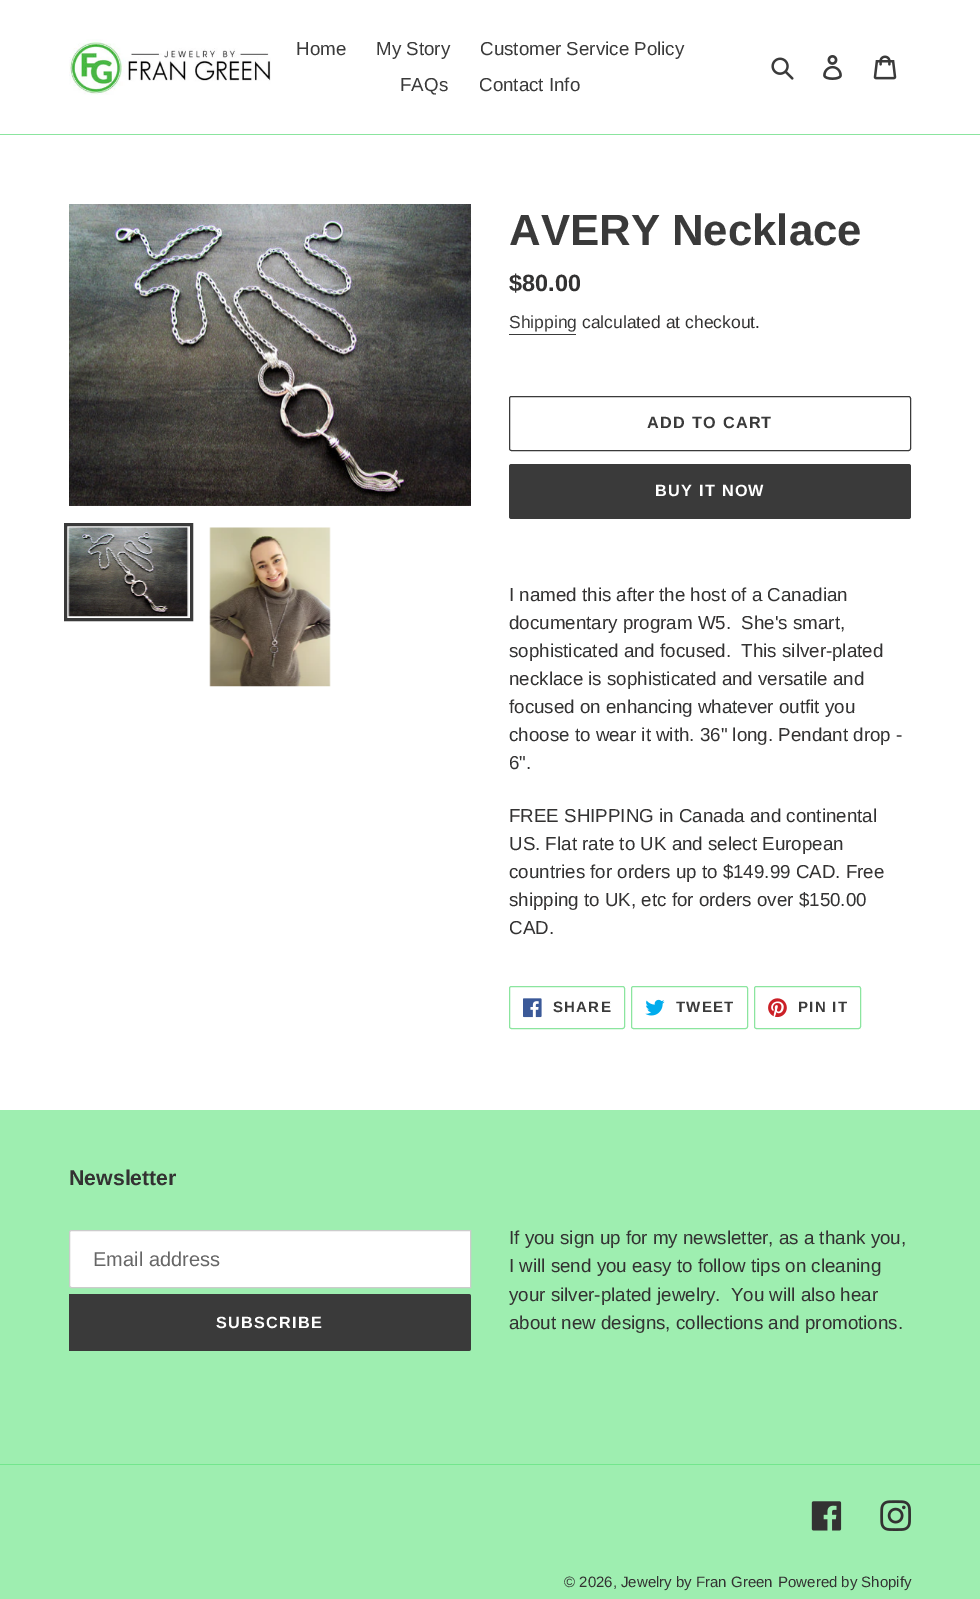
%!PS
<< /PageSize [980 1599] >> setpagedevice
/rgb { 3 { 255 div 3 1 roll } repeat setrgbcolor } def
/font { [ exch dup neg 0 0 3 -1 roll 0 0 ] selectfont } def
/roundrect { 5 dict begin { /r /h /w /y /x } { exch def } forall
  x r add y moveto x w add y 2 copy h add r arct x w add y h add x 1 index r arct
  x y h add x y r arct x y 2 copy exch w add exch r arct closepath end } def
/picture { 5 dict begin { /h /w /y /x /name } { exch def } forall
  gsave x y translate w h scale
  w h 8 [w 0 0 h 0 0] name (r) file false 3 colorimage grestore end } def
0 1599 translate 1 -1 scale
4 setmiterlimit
255 255 255 rgb
0 0 980 1599 rectfill
139 229 159 rgb
0 134 980 1 rectfill
(img/1.rgb) 69 39 202 56 picture
(img/2.rgb) 771 57 23 23 picture
(img/3.rgb) 823 55 19 25 picture
(img/4.rgb) 873 55 24 25 picture
(img/5.rgb) 69 204 402 302 picture
58 58 58 rgb
3 setlinewidth
65.5 524.5 126 95 rectstroke
(img/6.rgb) 68 527 121 90 picture
(img/7.rgb) 209 527 122 160 picture
509 334 67 1 rectfill
1 setlinewidth
509.5 396.5 401 54 2 roundrect stroke
509 464 402 55 2.5 roundrect fill
139 229 159 rgb
509.5 986.5 115 42 2 roundrect stroke
(img/8.rgb) 523 998 19 20 picture
631.5 986.5 116 42 2 roundrect stroke
(img/9.rgb) 645 999 20 17 picture
754.5 986.5 106 42 2 roundrect stroke
(img/10.rgb) 768 998 19 20 picture
158 238 176 rgb
0 1110 980 489 rectfill
255 255 255 rgb
71.5 1230.5 moveto 470.5 1230.5 lineto 470.5 1287.5 lineto 71.5 1287.5 lineto 70.5 1287.5 69.5 1286.5 69.5 1285.5 curveto 69.5 1232.5 lineto 69.5 1231.5 70.5 1230.5 71.5 1230.5 curveto closepath gsave fill grestore
204 204 204 rgb
stroke
58 58 58 rgb
69 1294 moveto 468.5 1294 lineto 470 1294 471 1295 471 1296.5 curveto 471 1348.5 lineto 471 1350 470 1351 468.5 1351 curveto 69 1351 lineto closepath fill
115 230 141 rgb
0 1464 980 1 rectfill
(img/11.rgb) 811 1501 31 30 picture
(img/12.rgb) 880 1500 31 31 picture
/LiberationSans-Regular 18.75 font
58 58 58 rgb
[
  [(Home) 296 55]
  [(My Story) 376 55]
  [(Customer Service Policy) 480 55]
  [(FAQs) 400 91]
  [(Contact Info) 479 91]
] { aload pop moveto show } forall
/LiberationSans-Bold 43.75 font
509 245 moveto (AVERY Necklace) show
/LiberationSans-Bold 23.5 font
51 50 50 rgb
509 291 moveto ($80.00) show
/LiberationSans-Regular 17.5 font
58 58 58 rgb
509 328 moveto (Shipping) show
51 50 50 rgb
582 328 moveto (calculated at checkout.) show
/LiberationSans-Bold 16.25 font
58 58 58 rgb
647 428 moveto 1.25 0 (ADD TO CART) ashow
255 255 255 rgb
655 496 moveto 1.25 0 (BUY IT NOW) ashow
/LiberationSans-Regular 18.75 font
51 50 50 rgb
[
  [(I named this after the host of a Canadian) 509 601]
  [(documentary program W5.  She's smart,) 509 629]
  [(sophisticated and focused.  This silver-plated) 509 657]
  [(necklace is sophisticated and versatile and) 509 685]
  [(focused on enhancing whatever outfit you) 509 713]
  [(choose to wear it with. 36" long. Pendant drop -) 509 741]
  [(6".) 509 769]
  [(FREE SHIPPING in Canada and continental) 509 822]
  [(US. Flat rate to UK and select European) 509 850]
  [(countries for orders up to $149.99 CAD. Free) 509 878]
  [(shipping to UK, etc for orders over $150.00) 509 906]
  [(CAD.) 509 934]
] { aload pop moveto show } forall
/LiberationSans-Bold 15 font
58 58 58 rgb
553 1012 moveto 1.25 0 (SHARE) ashow
676 1012 moveto 1.25 0 (TWEET) ashow
798 1012 moveto 1.25 0 (PIN IT) ashow
/LiberationSans-Bold 21.25 font
51 50 50 rgb
69 1185 moveto (Newsletter) show
/LiberationSans-Regular 20 font
102 102 102 rgb
93 1266 moveto (Email address) show
/LiberationSans-Bold 16.25 font
255 255 255 rgb
216 1328 moveto 1.25 0 (SUBSCRIBE) ashow
/LiberationSans-Regular 18.75 font
51 50 50 rgb
[
  [(If you sign up for my newsletter, as a thank you,) 509 1244]
  [(I will send you easy to follow tips on cleaning) 509 1272]
  [(your silver-plated jewelry.  You will also hear) 509 1301]
  [(about new designs, collections and promotions.) 509 1329]
] { aload pop moveto show } forall
/LiberationSans-Regular 15 font
564 1587 moveto (© 2026, Jewelry by Fran Green) show
778 1587 moveto (Powered by Shopify) show
showpage
